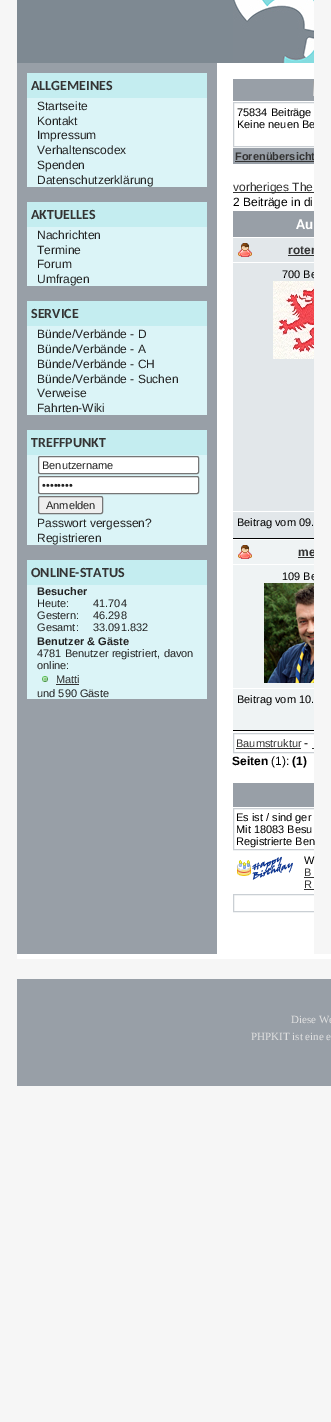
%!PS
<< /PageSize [331 1422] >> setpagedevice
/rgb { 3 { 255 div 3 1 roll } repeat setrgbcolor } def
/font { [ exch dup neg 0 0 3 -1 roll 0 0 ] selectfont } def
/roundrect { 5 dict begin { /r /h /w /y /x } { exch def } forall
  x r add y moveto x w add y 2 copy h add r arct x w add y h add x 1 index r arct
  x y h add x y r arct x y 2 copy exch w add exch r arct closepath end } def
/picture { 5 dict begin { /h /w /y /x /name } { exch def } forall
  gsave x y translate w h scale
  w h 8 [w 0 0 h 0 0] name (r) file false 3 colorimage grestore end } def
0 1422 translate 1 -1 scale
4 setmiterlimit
246 246 246 rgb
0 0 331 1422 rectfill
126 137 146 rgb
17 0 216 63 rectfill
(img/1.rgb) 233 0 81 63 picture
[
  [17 63 200 891 152 159 167]
  [27 73 180 25 196 237 240]
  [27 98 180 89 219 244 247]
  [27 202 180 25 196 237 240]
  [27 227 180 59 219 244 247]
  [27 301 180 25 196 237 240]
  [27 326 180 89 219 244 247]
  [27 430 180 25 196 237 240]
  [27 455 180 90 219 244 247]
] { aload pop rgb rectfill } forall
255 255 255 rgb
38.5 456.5 160 17 1.5 roundrect gsave fill grestore
118 118 118 rgb
stroke
255 255 255 rgb
38.5 476.5 160 17 1.5 roundrect gsave fill grestore
118 118 118 rgb
stroke
239 239 239 rgb
38.5 496.5 64 17 1.5 roundrect gsave fill grestore
118 118 118 rgb
stroke
196 237 240 rgb
27 560 180 25 rectfill
219 244 247 rgb
27 585 180 114 rectfill
(img/2.rgb) 42 676 6 6 picture
[
  [56 684 23 1 51 51 51]
  [217 63 97 891 255 255 255]
  [233 79 81 22 152 159 167]
] { aload pop rgb rectfill } forall
(img/3.rgb) 313 81 1 15 picture
gsave
17 0 297 954 rectclip
202 207 212 rgb
233.5 102.5 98 44 rectstroke
grestore
[
  [233 148 81 16 152 159 167]
  [235 161 79 1 51 51 51]
  [233 192 81 1 51 51 51]
  [233 211 81 26 152 159 167]
  [233 238 81 24 226 231 234]
] { aload pop rgb rectfill } forall
(img/4.rgb) 238 243 14 14 picture
51 51 51 rgb
288 255 26 1 rectfill
226 231 234 rgb
233 263 81 248 rectfill
(img/5.rgb) 273 281 41 78 picture
[
  [233 512 81 26 226 231 234]
  [233 538 81 1 0 0 0]
  [233 540 81 24 239 243 244]
] { aload pop rgb rectfill } forall
(img/6.rgb) 238 545 14 14 picture
51 51 51 rgb
298 557 16 1 rectfill
239 243 244 rgb
233 565 81 123 rectfill
(img/7.rgb) 264 583 50 100 picture
233 689 81 41 rectfill
0 0 0 rgb
233 730 81 1 rectfill
gsave
17 0 297 954 rectclip
202 207 212 rgb
233.5 733.5 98 19 rectstroke
grestore
[
  [236 748 65 1 51 51 51]
  [312 748 2 1 51 51 51]
  [233 783 81 24 152 159 167]
] { aload pop rgb rectfill } forall
gsave
17 0 297 954 rectclip
202 207 212 rgb
233.5 808.5 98 41 rectstroke
grestore
(img/8.rgb) 237 856 56 24 picture
51 51 51 rgb
304 877 10 1 rectfill
304 889 10 1 rectfill
gsave
17 0 297 954 rectclip
202 207 212 rgb
233.5 894.5 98 17 rectstroke
grestore
255 255 255 rgb
17 954 314 5 rectfill
152 159 167 rgb
17 979 314 107 rectfill
/Carlito-Bold 14 font
51 51 51 rgb
31 90 moveto (ALLGEMEINES) show
/LiberationSans-Regular 12 font
34 34 34 rgb
[
  [(Startseite) 37 110]
  [(Kontakt) 37 125]
  [(Impressum) 37 139]
  [(Verhaltenscodex) 37 154]
  [(Spenden) 37 169]
  [(Datenschutzerklärung) 37 184]
] { aload pop moveto show } forall
/Carlito-Bold 14 font
51 51 51 rgb
31 219 moveto (AKTUELLES) show
/LiberationSans-Regular 12 font
34 34 34 rgb
[
  [(Nachrichten) 37 239]
  [(Termine) 37 254]
  [(Forum) 37 268]
  [(Umfragen) 37 283]
] { aload pop moveto show } forall
/Carlito-Bold 14 font
51 51 51 rgb
31 318 moveto (SERVICE) show
/LiberationSans-Regular 12 font
34 34 34 rgb
[
  [(Bünde/Verbände - D) 37 338]
  [(Bünde/Verbände - A) 37 353]
  [(Bünde/Verbände - CH) 37 368]
  [(Bünde/Verbände - Suchen) 37 383]
  [(Verweise) 37 397]
  [(Fahrten-Wiki) 37 412]
] { aload pop moveto show } forall
/Carlito-Bold 14 font
51 51 51 rgb
31 447 moveto (TREFFPUNKT) show
/LiberationSans-Regular 11 font
34 34 34 rgb
[
  [(Benutzername) 42 469]
  [(••••••••) 42 489]
  [(Anmelden) 46 509]
] { aload pop moveto show } forall
/LiberationSans-Regular 12 font
37 527 moveto (Passwort vergessen?) show
37 542 moveto (Registrieren) show
/Carlito-Bold 14 font
51 51 51 rgb
31 577 moveto (ONLINE-STATUS) show
/LiberationSans-Bold 11 font
34 34 34 rgb
37 595 moveto (Besucher) show
/LiberationSans-Regular 11 font
[
  [(Heute:) 37 607]
  [(41.704) 93 607]
  [(Gestern:) 37 619]
  [(46.298) 93 619]
  [(Gesamt:) 37 631]
  [(33.091.832) 93 631]
] { aload pop moveto show } forall
/LiberationSans-Bold 11 font
37 645 moveto (Benutzer & Gäste) show
/LiberationSans-Regular 11 font
37 657 moveto (4781 Benutzer registriert, davon) show
37 669 moveto (online:) show
51 51 51 rgb
56 683 moveto (Matti) show
34 34 34 rgb
37 697 moveto (und 590 Gäste) show
0 0 0 rgb
237 116 moveto (75834 Beiträge) show
gsave
17 0 297 954 rectclip
237 128 moveto (Keine neuen Be) show
/LiberationSans-Bold 11 font
51 51 51 rgb
235 160 moveto (Forenübersicht) show
grestore
/LiberationSans-Regular 12 font
51 51 51 rgb
233 191 moveto (vorheriges The) show
0 0 0 rgb
233 206 moveto (2 Beiträge in di) show
/Carlito-Bold 15 font
255 255 255 rgb
296 229 moveto (Au) show
gsave
17 0 297 954 rectclip
/LiberationSans-Bold 12 font
51 51 51 rgb
288 254 moveto (roter) show
/LiberationSans-Regular 11 font
0 0 0 rgb
282 278 moveto (700 Be) show
grestore
/LiberationSans-Regular 11 font
0 0 0 rgb
237 526 moveto (Beitrag vom 09.) show
gsave
17 0 297 954 rectclip
/LiberationSans-Bold 12 font
51 51 51 rgb
298 556 moveto (me) show
/LiberationSans-Regular 11 font
0 0 0 rgb
282 580 moveto (109 Be) show
grestore
237 703 moveto (Beitrag vom 10.) show
51 51 51 rgb
236 747 moveto (Baumstruktur) show
/LiberationSans-Regular 12 font
0 0 0 rgb
304 747 moveto (-) show
/LiberationSans-Bold 12 font
232 765 moveto (Seiten) show
/LiberationSans-Regular 12 font
271 765 moveto (\(1\):) show
/LiberationSans-Bold 12 font
292 765 moveto (\(1\)) show
/LiberationSans-Regular 11 font
[
  [(Es ist / sind ger) 236 821]
  [(Mit 18083 Besu) 236 833]
  [(Registrierte Ben) 236 845]
  [(W) 304 864]
] { aload pop moveto show } forall
51 51 51 rgb
304 876 moveto (B) show
304 888 moveto (R) show
/LiberationSerif-Regular 11 font
224 224 224 rgb
291 1023 moveto (Diese We) show
251 1040 moveto (PHPKIT ist eine e) show
showpage
